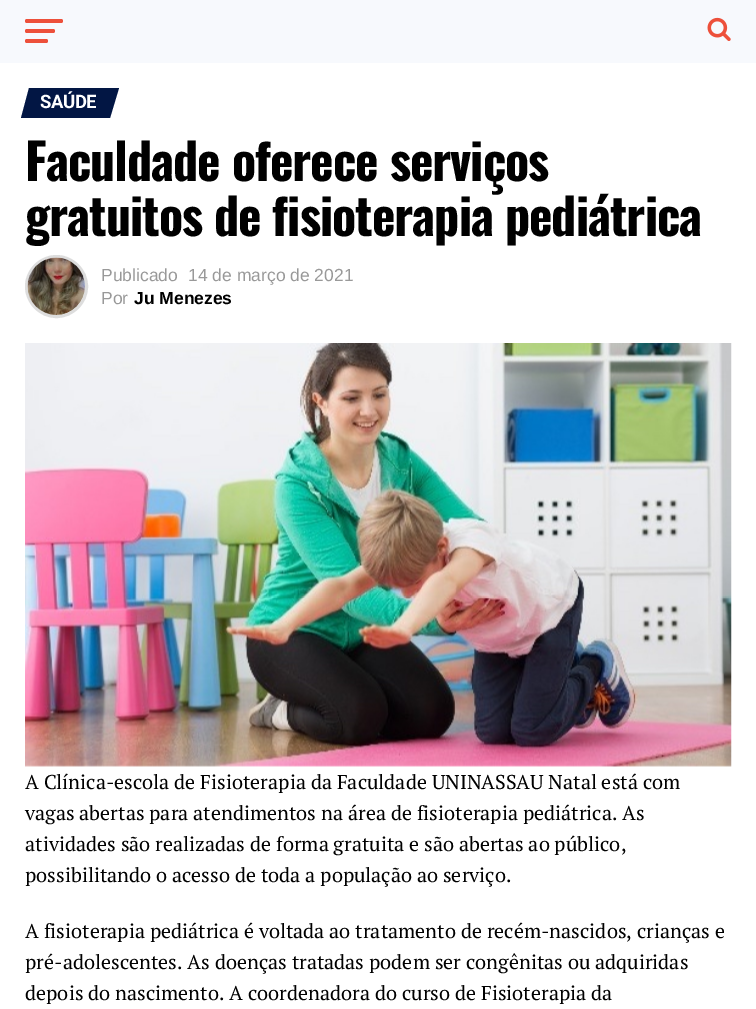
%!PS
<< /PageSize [756 1009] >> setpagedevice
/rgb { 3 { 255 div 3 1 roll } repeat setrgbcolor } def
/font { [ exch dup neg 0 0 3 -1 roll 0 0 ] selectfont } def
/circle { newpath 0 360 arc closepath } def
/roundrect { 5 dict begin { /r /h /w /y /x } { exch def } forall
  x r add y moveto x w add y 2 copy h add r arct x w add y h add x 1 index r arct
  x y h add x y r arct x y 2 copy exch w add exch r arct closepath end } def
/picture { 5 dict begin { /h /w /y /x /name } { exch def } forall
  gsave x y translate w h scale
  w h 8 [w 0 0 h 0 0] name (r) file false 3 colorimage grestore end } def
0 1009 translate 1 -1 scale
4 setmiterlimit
255 255 255 rgb
0 0 756 1009 rectfill
247 249 253 rgb
0 0 756 63 rectfill
237 80 59 rgb
25 19 38 4 2 roundrect fill
25 29 30 4 2 roundrect fill
25 39 23 4 2 roundrect fill
(img/1.rgb) 707 17 24 24 picture
2 22 68 rgb
29 88 moveto 119 88 lineto 110 118 lineto 21 118 lineto closepath fill
221 221 221 rgb
3 setlinewidth
56.5 286.5 30 circle stroke
(img/2.rgb) 27 257 58 58 picture
(img/3.rgb) 25 343 707 424 picture
/Roboto-Bold 18.5 font
255 255 255 rgb
40 108 moveto -0.5 0 (SAÚDE) ashow
/Oswald-Bold 50 font
0 0 0 rgb
25 181 moveto -1 0 (Faculdade oferece serviços) ashow
25 236 moveto -1 0 (gratuitos de fisioterapia pediátrica) ashow
/LiberationSans-Regular 17.5 font
153 153 153 rgb
[
  [(Publicado) 101 281]
  [(14 de março de 2021) 188 281]
  [(Por) 101 304]
] { aload pop moveto show } forall
/LiberationSans-Bold 17.5 font
0 0 0 rgb
134 304 moveto (Ju Menezes) show
/PTSerif-Regular 20 font
[
  [(A Clínica-escola de Fisioterapia da Faculdade UNINASSAU Natal está com) 25 789]
  [(vagas abertas para atendimentos na área de fisioterapia pediátrica. As) 25 820]
  [(atividades são realizadas de forma gratuita e são abertas ao público,) 25 851]
  [(possibilitando o acesso de toda a população ao serviço.) 25 882]
  [(A fisioterapia pediátrica é voltada ao tratamento de recém-nascidos, crianças e) 25 938]
  [(pré-adolescentes. As doenças tratadas podem ser congênitas ou adquiridas) 25 969]
  [(depois do nascimento. A coordenadora do curso de Fisioterapia da) 25 1000]
] { aload pop moveto show } forall
showpage
